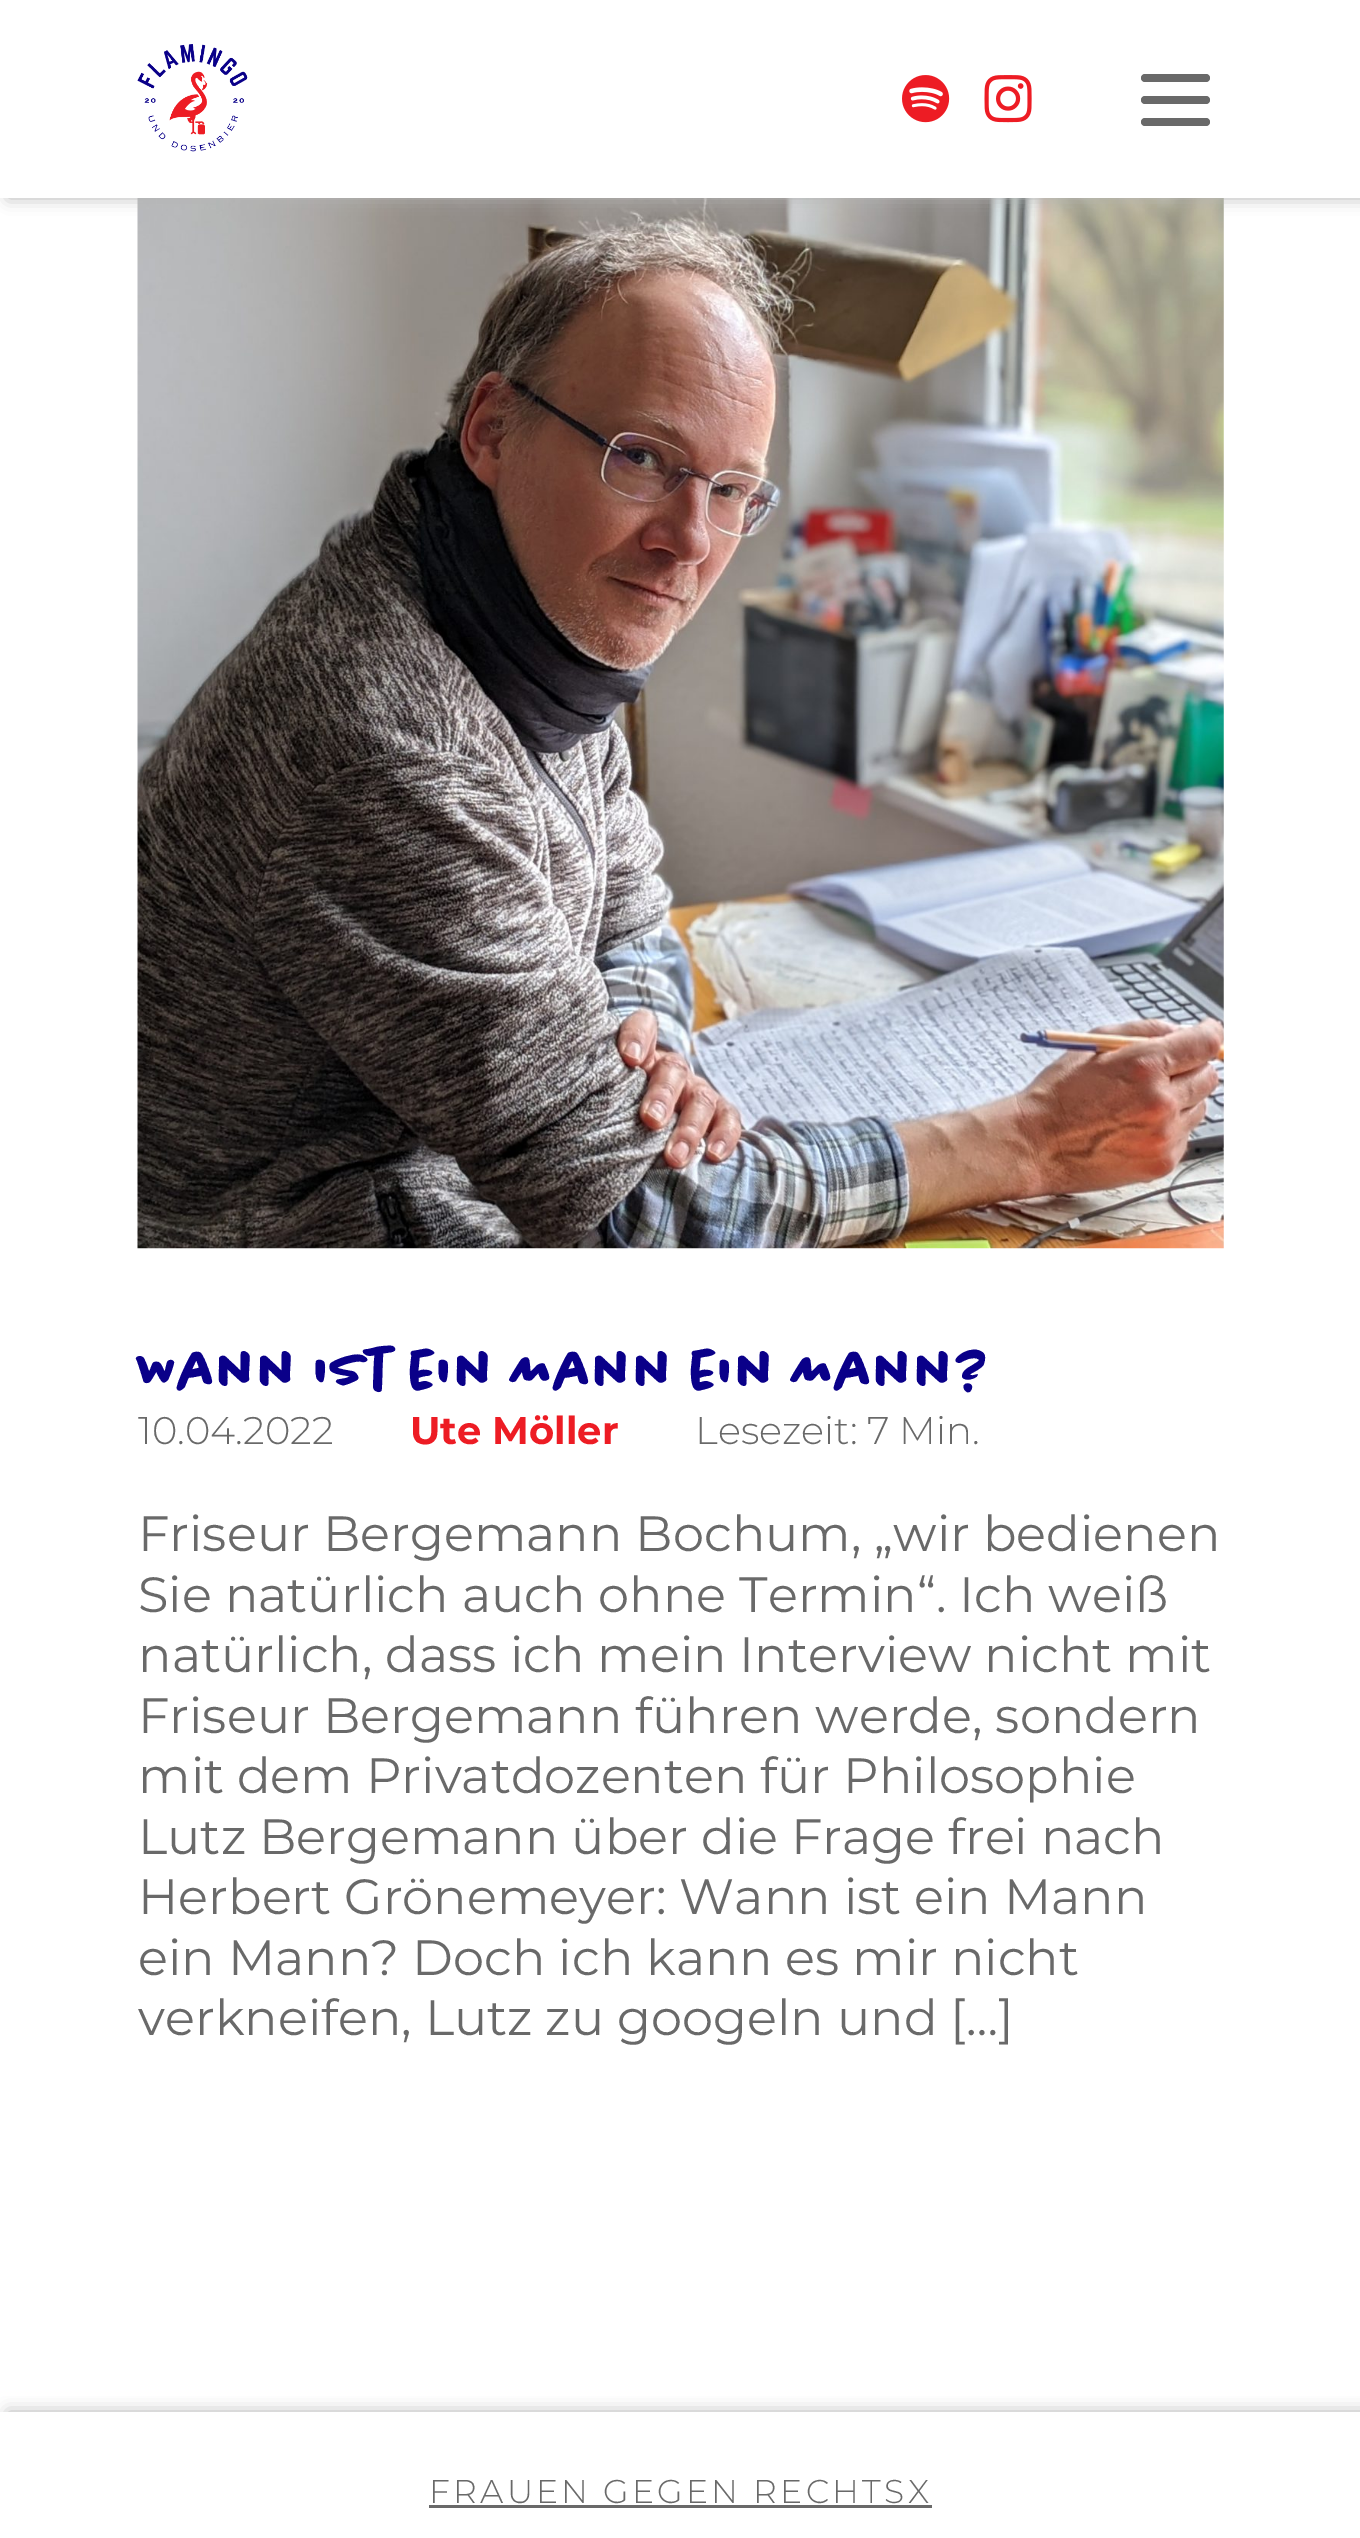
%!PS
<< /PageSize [1360 2538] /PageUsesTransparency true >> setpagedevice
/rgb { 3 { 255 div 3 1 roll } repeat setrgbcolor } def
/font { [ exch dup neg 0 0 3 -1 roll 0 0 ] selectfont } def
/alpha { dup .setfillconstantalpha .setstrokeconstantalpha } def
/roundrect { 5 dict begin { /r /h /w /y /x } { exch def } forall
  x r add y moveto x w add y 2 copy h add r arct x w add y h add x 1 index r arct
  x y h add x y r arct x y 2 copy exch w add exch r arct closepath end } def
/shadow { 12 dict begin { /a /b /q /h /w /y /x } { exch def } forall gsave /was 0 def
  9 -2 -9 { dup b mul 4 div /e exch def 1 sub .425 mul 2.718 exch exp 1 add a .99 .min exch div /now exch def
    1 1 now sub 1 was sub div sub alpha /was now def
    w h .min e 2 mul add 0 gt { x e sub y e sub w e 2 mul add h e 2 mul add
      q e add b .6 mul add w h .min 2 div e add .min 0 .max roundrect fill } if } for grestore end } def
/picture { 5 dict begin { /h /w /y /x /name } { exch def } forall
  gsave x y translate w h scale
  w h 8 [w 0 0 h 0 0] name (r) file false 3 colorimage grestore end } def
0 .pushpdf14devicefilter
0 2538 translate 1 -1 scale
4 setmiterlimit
255 255 255 rgb
0 0 1360 2538 rectfill
(img/4.rgb) 137 198 1087 1051 picture
180 180 180 rgb
8 0 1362 198 0 8 1 shadow
255 255 255 rgb
0 0 1360 198 rectfill
(img/1.rgb) 137 44 111 108 picture
(img/2.rgb) 902 75 48 48 picture
(img/3.rgb) 984 75 48 48 picture
105 105 105 rgb
1141 74 69 8 4 roundrect fill
1141 96 69 8 4 roundrect fill
1141 118 69 8 4 roundrect fill
gsave
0 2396 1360 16 rectclip
180 180 180 rgb
8 2412 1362 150 0 8 1 shadow
grestore
429 2505 503 3 rectfill
/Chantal-Bold 55 font
10 0 137 rgb
138 1389 moveto (Wann ist ein Mann ein Mann?) show
/Montserrat-Light 38.5 font
105 105 105 rgb
138 1444 moveto (10.04.2022) show
/Montserrat-Bold 38.5 font
237 28 36 rgb
410 1444 moveto (Ute Möller) show
/Montserrat-Light 38.5 font
105 105 105 rgb
695 1444 moveto (Lesezeit: 7 Min.) show
/Montserrat-Regular 49.5 font
[
  [(Friseur Bergemann Bochum, „wir bedienen) 138 1551]
  [(Sie natürlich auch ohne Termin“. Ich weiß) 138 1612]
  [(natürlich, dass ich mein Interview nicht mit) 138 1672]
  [(Friseur Bergemann führen werde, sondern) 138 1733]
  [(mit dem Privatdozenten für Philosophie) 138 1793]
  [(Lutz Bergemann über die Frage frei nach) 138 1854]
  [(Herbert Grönemeyer: Wann ist ein Mann) 138 1914]
  [(ein Mann? Doch ich kann es mir nicht) 138 1975]
  [(verkneifen, Lutz zu googeln und […]) 138 2035]
] { aload pop moveto show } forall
/Montserrat-Light 33 font
429 2503 moveto 3.25 0 (FRAUEN GEGEN RECHTSX) ashow
.poppdf14devicefilter showpage
